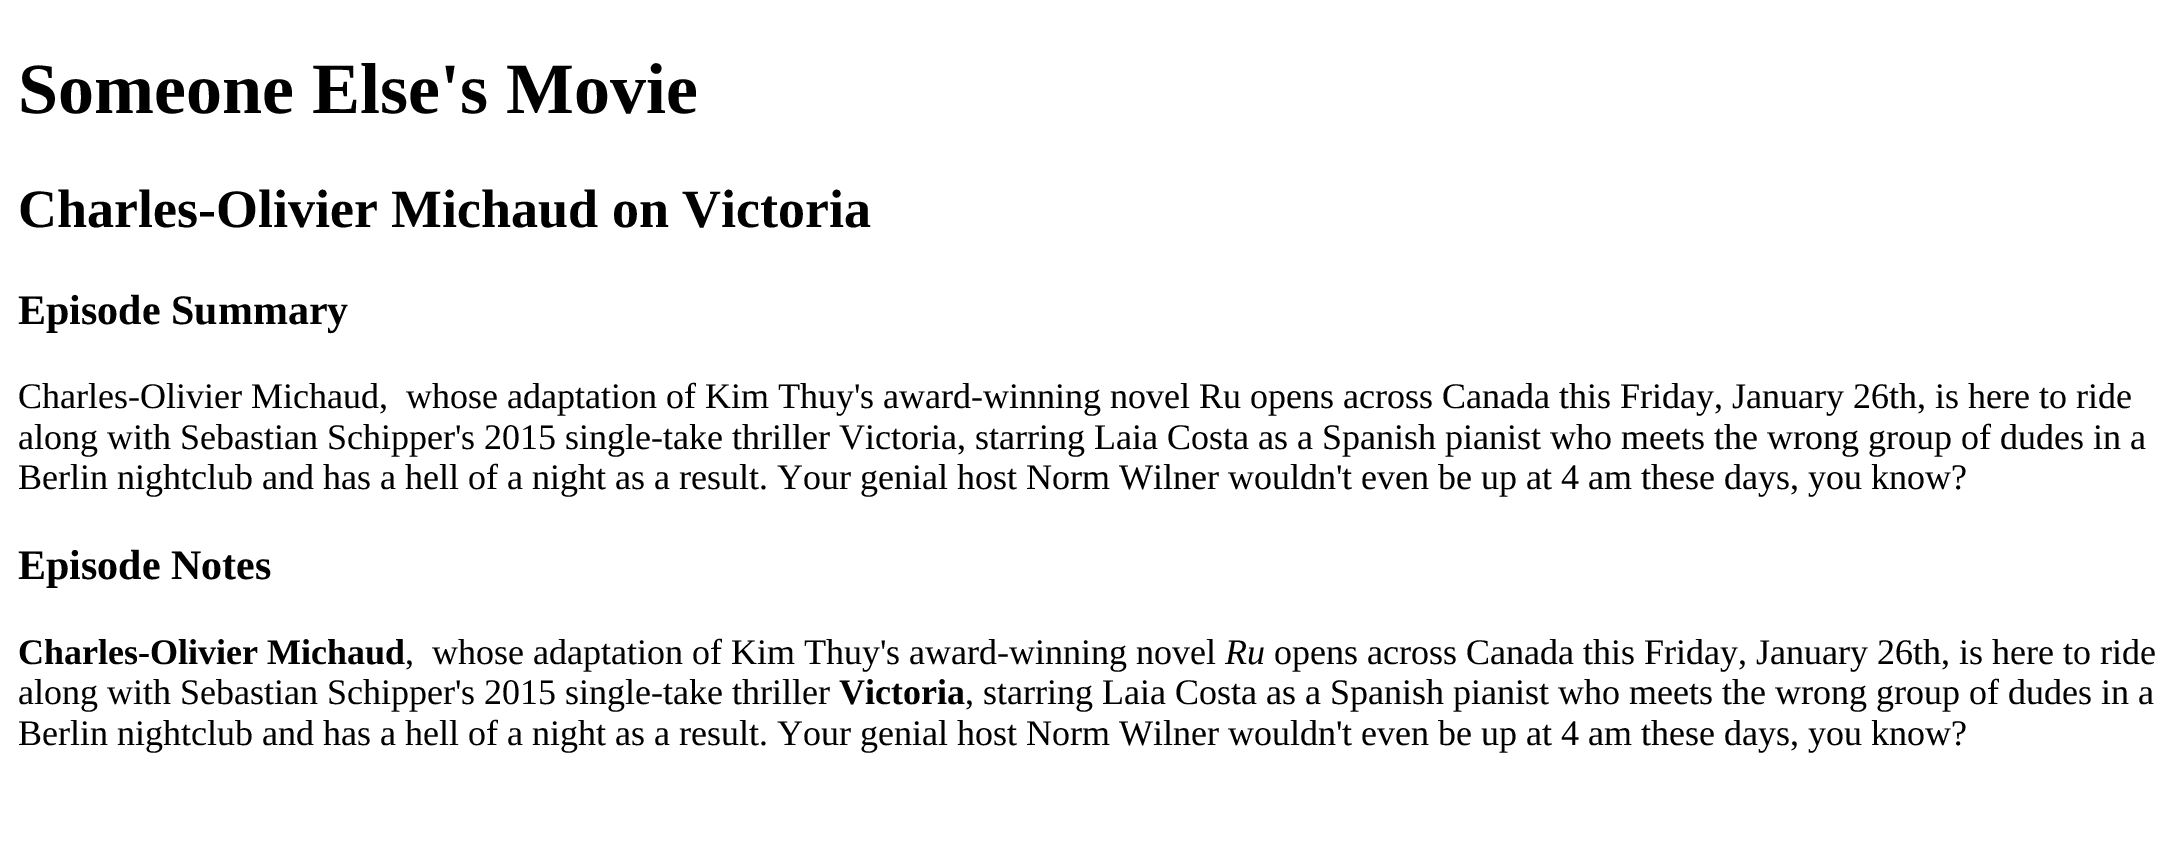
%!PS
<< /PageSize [2174 843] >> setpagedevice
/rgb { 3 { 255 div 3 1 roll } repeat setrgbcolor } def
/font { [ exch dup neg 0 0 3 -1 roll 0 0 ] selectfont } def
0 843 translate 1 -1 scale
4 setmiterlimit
255 255 255 rgb
0 0 2174 843 rectfill
/LiberationSerif-Bold 72 font
0 0 0 rgb
18 113 moveto (Someone Else's Movie) show
/LiberationSerif-Bold 54 font
18 227 moveto (Charles-Olivier Michaud on Victoria) show
/LiberationSerif-Bold 42 font
18 324 moveto (Episode Summary) show
/LiberationSerif-Regular 36 font
[
  [(Charles-Olivier Michaud,  whose adaptation of Kim Thuy's award-winning novel Ru opens across Canada this Friday, January 26th, is here to ride) 18 408]
  [(along with Sebastian Schipper's 2015 single-take thriller Victoria, starring Laia Costa as a Spanish pianist who meets the wrong group of dudes in a) 18 449]
  [(Berlin nightclub and has a hell of a night as a result. Your genial host Norm Wilner wouldn't even be up at 4 am these days, you know?) 18 489]
] { aload pop moveto show } forall
/LiberationSerif-Bold 42 font
18 579 moveto (Episode Notes) show
/LiberationSerif-Bold 36 font
18 664 moveto (Charles-Olivier Michaud) show
/LiberationSerif-Regular 36 font
405 664 moveto (,  whose adaptation of Kim Thuy's award-winning novel) show
/LiberationSerif-Italic 36 font
1225 664 moveto (Ru) show
/LiberationSerif-Regular 36 font
1274 664 moveto (opens across Canada this Friday, January 26th, is here to ride) show
18 704 moveto (along with Sebastian Schipper's 2015 single-take thriller) show
/LiberationSerif-Bold 36 font
839 704 moveto (Victoria) show
/LiberationSerif-Regular 36 font
965 704 moveto (, starring Laia Costa as a Spanish pianist who meets the wrong group of dudes in a) show
18 745 moveto (Berlin nightclub and has a hell of a night as a result. Your genial host Norm Wilner wouldn't even be up at 4 am these days, you know?) show
showpage
